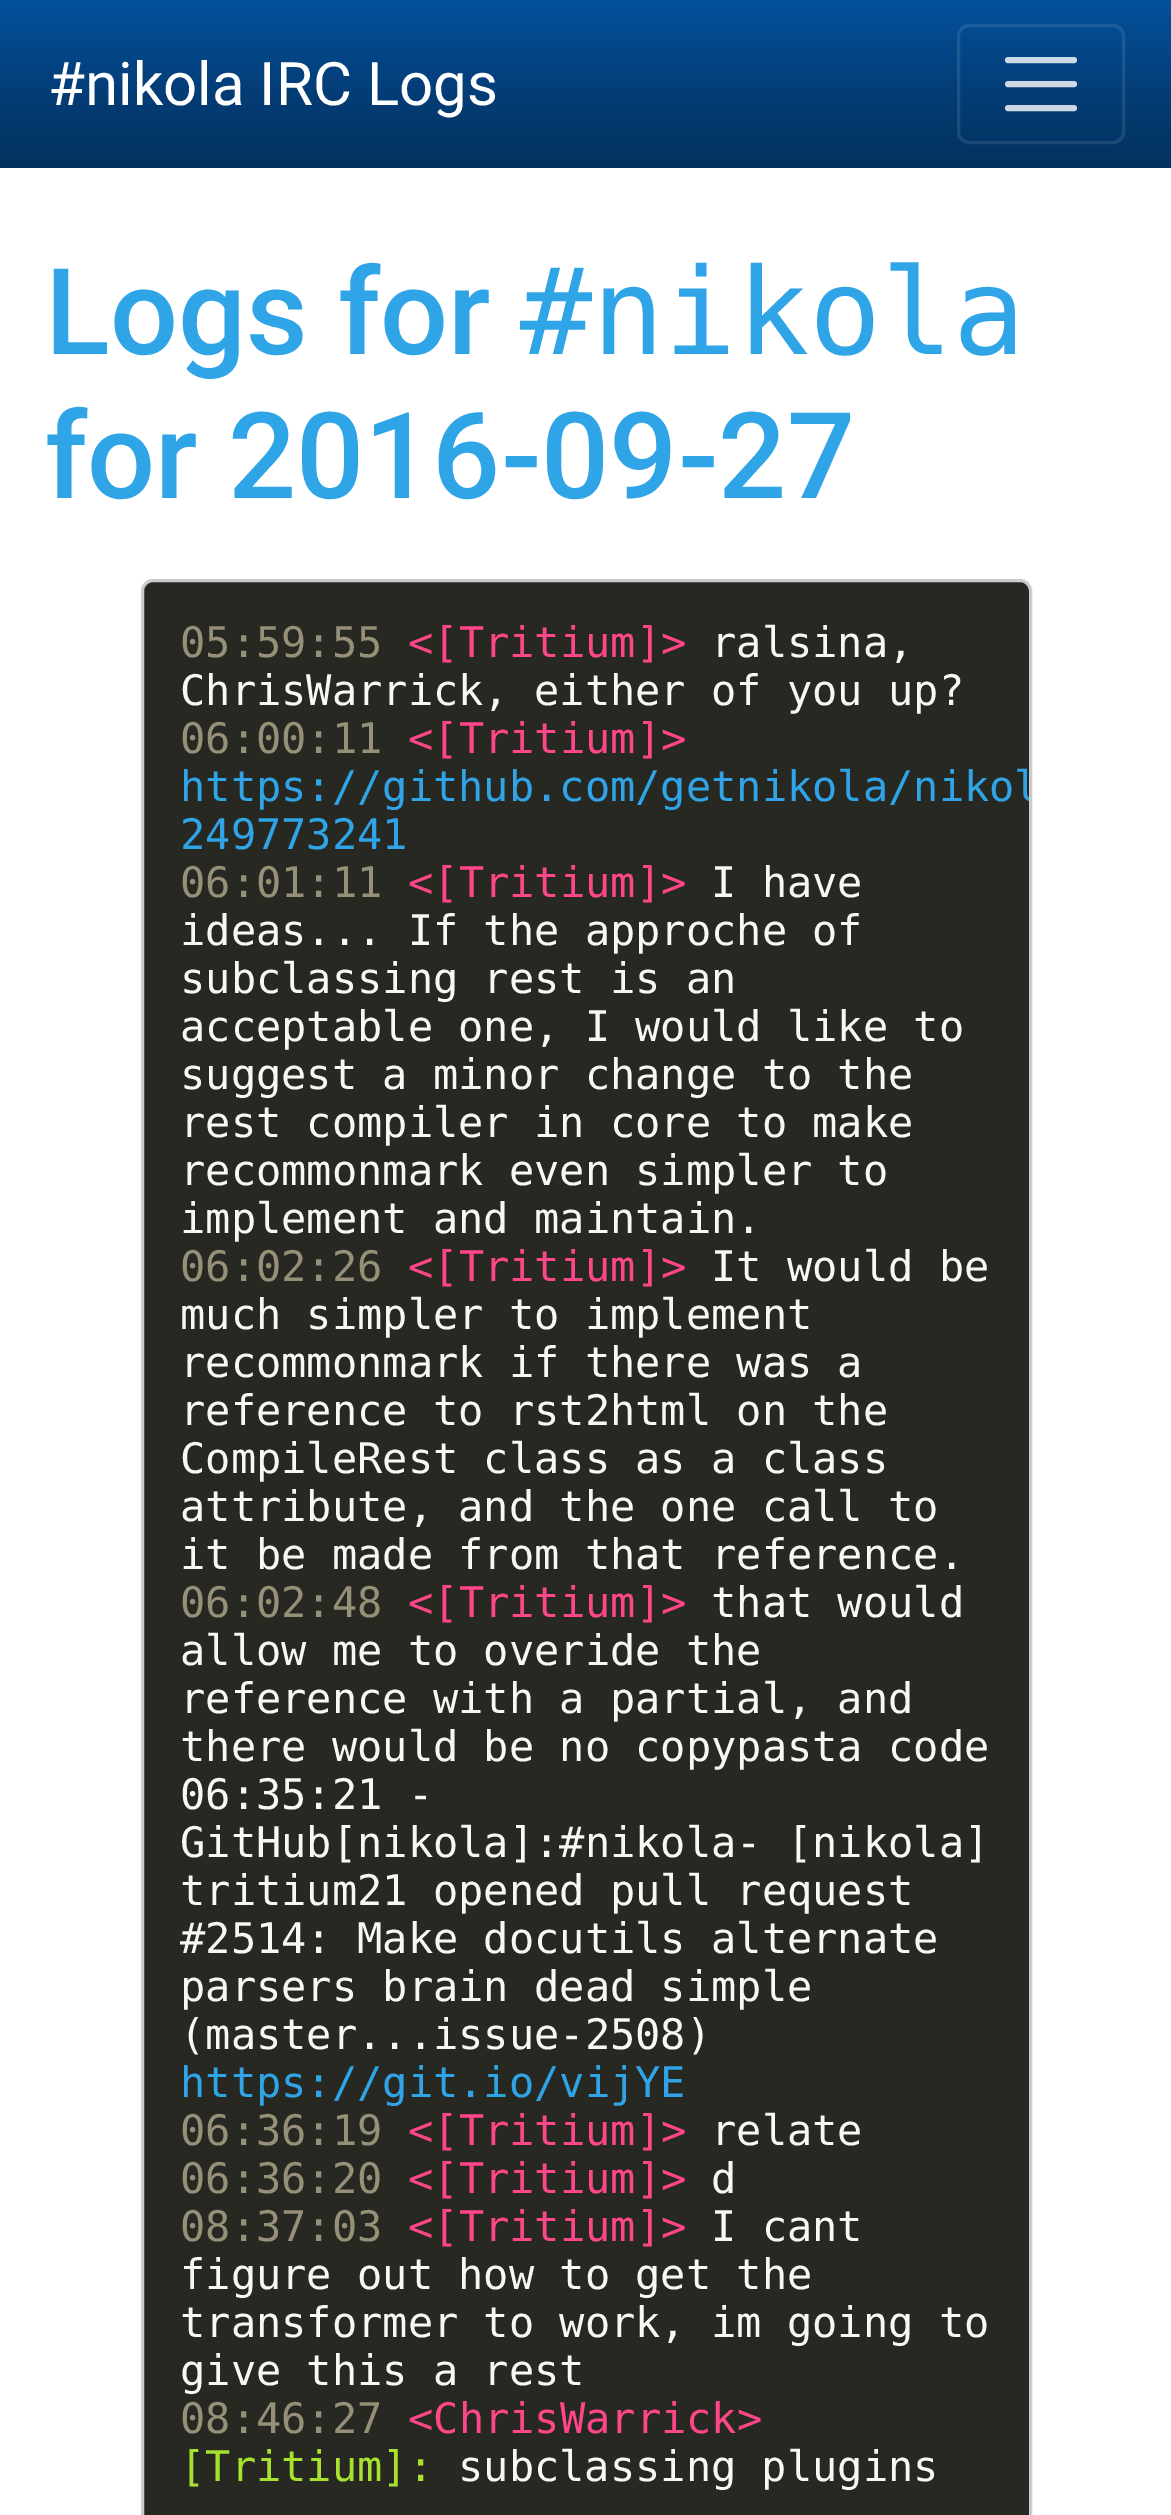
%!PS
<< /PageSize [1171 2515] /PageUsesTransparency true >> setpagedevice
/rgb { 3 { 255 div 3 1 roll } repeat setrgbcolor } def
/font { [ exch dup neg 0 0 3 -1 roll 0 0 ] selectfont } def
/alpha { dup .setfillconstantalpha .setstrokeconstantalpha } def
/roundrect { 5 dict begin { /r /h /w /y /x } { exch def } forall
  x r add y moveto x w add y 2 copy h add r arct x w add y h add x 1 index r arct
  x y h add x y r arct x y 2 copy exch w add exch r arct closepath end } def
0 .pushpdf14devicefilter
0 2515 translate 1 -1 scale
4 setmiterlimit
255 255 255 rgb
0 0 1171 2515 rectfill
gsave 0 0 moveto 1171 0 lineto 1171 168 lineto 0 168 lineto closepath clip newpath
<< /ShadingType 2 /ColorSpace /DeviceRGB /Coords [587 0 587 168] /Extend [true true] /Function << /FunctionType 3 /Domain [0 1] /Functions [<< /FunctionType 2 /Domain [0 1] /C0 [0.016 0.318 0.608] /C1 [0.012 0.235 0.451] /N 1 >> << /FunctionType 2 /Domain [0 1] /C0 [0.012 0.235 0.451] /C1 [0.008 0.196 0.373] /N 1 >>] /Bounds [0.6] /Encode [0 1 0 1] >> >> shfill grestore
0.1 alpha
3 setlinewidth
958.5 25.5 165 117 10.5 roundrect stroke
0.8 alpha
6 setlinewidth
1 setlinecap
1008 60 moveto 1074 60 lineto 1008 84 moveto 1074 84 lineto 1008 108 moveto 1074 108 lineto stroke
1 alpha
39 40 34 rgb
142.5 580.5 888 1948 10.5 roundrect gsave fill grestore
204 204 204 rgb
3 setlinewidth
0 setlinecap
stroke
/Roboto-Regular 60 font
255 255 255 rgb
48 105 moveto (#nikola IRC Logs) show
/Roboto-Medium 120 font
47 164 231 rgb
45 354 moveto (Logs for) show
/DejaVuSansMono-Regular 120 font
520 354 moveto (#nikola) show
/Roboto-Medium 120 font
45 498 moveto (for 2016-09-27) show
/DejaVuSansMono-Regular 42 font
149 144 119 rgb
180 657 moveto (05:59:55) show
255 70 137 rgb
408 657 moveto (<[Tritium]>) show
248 248 242 rgb
711 657 moveto (ralsina,) show
180 705 moveto (ChrisWarrick, either of you up?) show
149 144 119 rgb
180 753 moveto (06:00:11) show
255 70 137 rgb
408 753 moveto (<[Tritium]>) show
gsave
144 582 885 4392 9 roundrect clip newpath
47 164 231 rgb
180 801 moveto (https://github.com/getnikola/nikol) show
grestore
47 164 231 rgb
180 849 moveto (249773241) show
149 144 119 rgb
180 897 moveto (06:01:11) show
255 70 137 rgb
408 897 moveto (<[Tritium]>) show
248 248 242 rgb
[
  [(I have) 711 897]
  [(ideas... If the approche of) 180 945]
  [(subclassing rest is an) 180 993]
  [(acceptable one, I would like to) 180 1041]
  [(suggest a minor change to the) 180 1089]
  [(rest compiler in core to make) 180 1137]
  [(recommonmark even simpler to) 180 1185]
  [(implement and maintain.) 180 1233]
] { aload pop moveto show } forall
149 144 119 rgb
180 1281 moveto (06:02:26) show
255 70 137 rgb
408 1281 moveto (<[Tritium]>) show
248 248 242 rgb
[
  [(It would be) 711 1281]
  [(much simpler to implement) 180 1329]
  [(recommonmark if there was a) 180 1377]
  [(reference to rst2html on the) 180 1425]
  [(CompileRest class as a class) 180 1473]
  [(attribute, and the one call to) 180 1521]
  [(it be made from that reference.) 180 1569]
] { aload pop moveto show } forall
149 144 119 rgb
180 1617 moveto (06:02:48) show
255 70 137 rgb
408 1617 moveto (<[Tritium]>) show
248 248 242 rgb
[
  [(that would) 711 1617]
  [(allow me to overide the) 180 1665]
  [(reference with a partial, and) 180 1713]
  [(there would be no copypasta code) 180 1761]
  [(06:35:21 -) 180 1809]
  [(GitHub[nikola]:#nikola- [nikola]) 180 1857]
  [(tritium21 opened pull request) 180 1905]
  [(#2514: Make docutils alternate) 180 1953]
  [(parsers brain dead simple) 180 2001]
  [(\(master...issue-2508\)) 180 2049]
] { aload pop moveto show } forall
47 164 231 rgb
180 2097 moveto (https://git.io/vijYE) show
149 144 119 rgb
180 2145 moveto (06:36:19) show
255 70 137 rgb
408 2145 moveto (<[Tritium]>) show
248 248 242 rgb
711 2145 moveto (relate) show
149 144 119 rgb
180 2193 moveto (06:36:20) show
255 70 137 rgb
408 2193 moveto (<[Tritium]>) show
248 248 242 rgb
711 2193 moveto (d) show
149 144 119 rgb
180 2241 moveto (08:37:03) show
255 70 137 rgb
408 2241 moveto (<[Tritium]>) show
248 248 242 rgb
[
  [(I cant) 711 2241]
  [(figure out how to get the) 180 2289]
  [(transformer to work, im going to) 180 2337]
  [(give this a rest) 180 2385]
] { aload pop moveto show } forall
149 144 119 rgb
180 2433 moveto (08:46:27) show
255 70 137 rgb
408 2433 moveto (<ChrisWarrick>) show
166 226 46 rgb
180 2481 moveto ([Tritium]:) show
248 248 242 rgb
458 2481 moveto (subclassing plugins) show
.poppdf14devicefilter showpage
